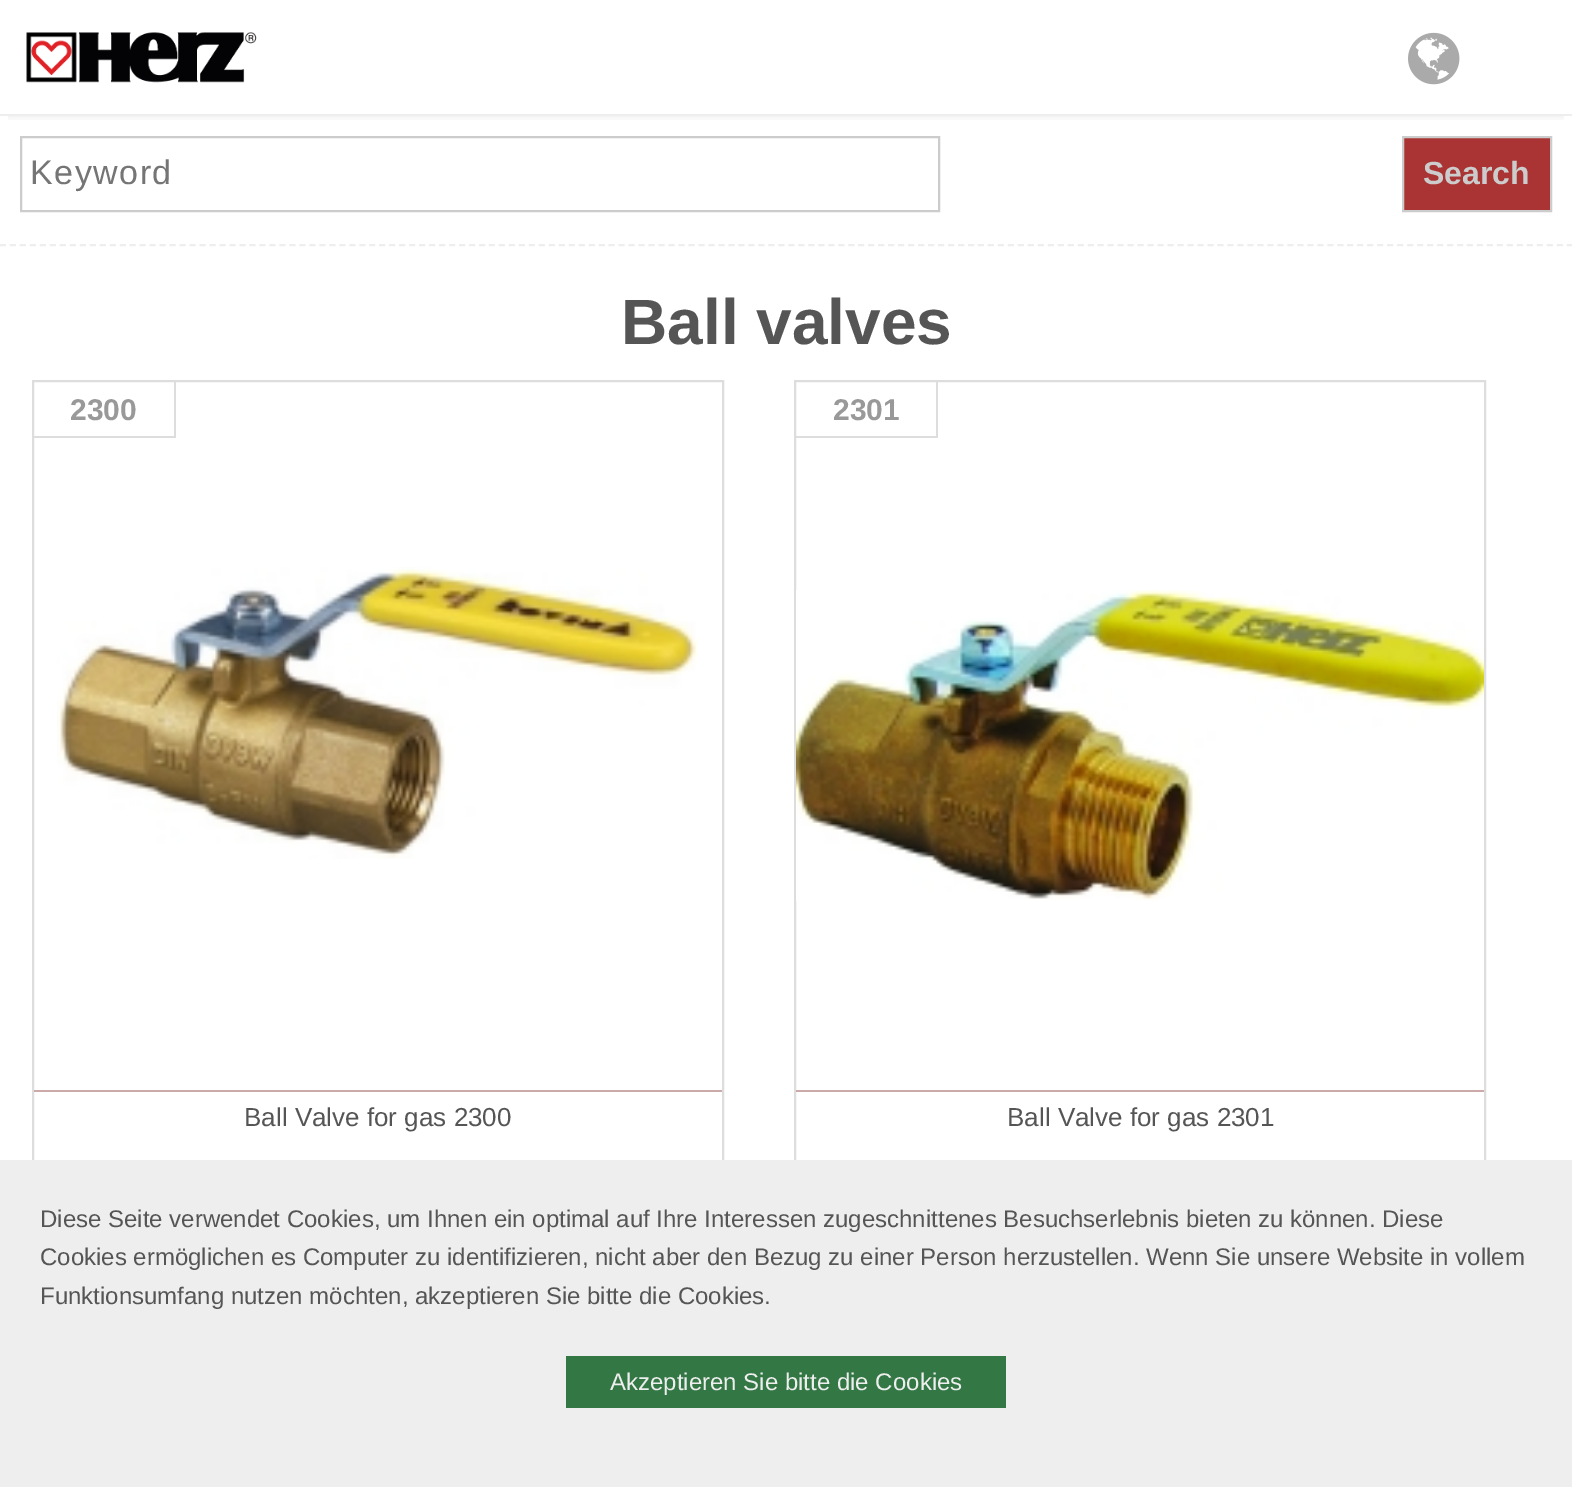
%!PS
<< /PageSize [1572 1487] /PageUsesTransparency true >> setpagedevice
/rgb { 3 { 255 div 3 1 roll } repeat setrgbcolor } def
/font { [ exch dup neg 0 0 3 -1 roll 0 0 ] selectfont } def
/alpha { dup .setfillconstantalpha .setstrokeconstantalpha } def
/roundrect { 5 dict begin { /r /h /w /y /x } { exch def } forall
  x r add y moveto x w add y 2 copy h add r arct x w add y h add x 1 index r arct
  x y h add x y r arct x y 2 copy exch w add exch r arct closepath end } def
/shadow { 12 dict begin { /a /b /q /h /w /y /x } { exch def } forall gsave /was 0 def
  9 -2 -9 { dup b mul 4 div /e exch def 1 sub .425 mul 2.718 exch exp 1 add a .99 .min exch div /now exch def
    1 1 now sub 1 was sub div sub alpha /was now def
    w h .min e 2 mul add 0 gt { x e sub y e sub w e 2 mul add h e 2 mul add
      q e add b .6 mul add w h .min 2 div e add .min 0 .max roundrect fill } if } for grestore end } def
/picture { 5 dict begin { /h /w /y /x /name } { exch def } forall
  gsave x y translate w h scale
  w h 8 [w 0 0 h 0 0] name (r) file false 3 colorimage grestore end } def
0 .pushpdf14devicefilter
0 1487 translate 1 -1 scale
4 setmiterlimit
255 255 255 rgb
0 0 1572 1487 rectfill
gsave
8 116 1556 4 rectclip
0 0 0 rgb
8 16 1556 100 0 5 0.09 shadow
grestore
238 238 238 rgb
0 114 1572 2 rectfill
(img/1.rgb) 26 32 231 51 picture
(img/2.rgb) 1408 32 52 53 picture
2 setlinewidth
[6 3.98] 0 setdash
0 245 moveto 1572 245 lineto stroke
204 204 204 rgb
[] 0 setdash
21 137 918 74 rectstroke
170 51 51 rgb
1403 137 moveto 1551 137 lineto 1551 211 lineto 1403 211 lineto closepath gsave fill grestore
204 204 204 rgb
stroke
221 221 221 rgb
33 381 690 792 rectstroke
[
  [174 382 2 56 221 221 221]
  [34 436 142 2 221 221 221]
  [34 1090 688 2 204 170 170]
] { aload pop rgb rectfill } forall
(img/3.rgb) 57 567 642 292 picture
221 221 221 rgb
795 381 690 792 rectstroke
[
  [936 382 2 56 221 221 221]
  [796 436 142 2 221 221 221]
  [796 1090 688 2 204 170 170]
] { aload pop rgb rectfill } forall
(img/4.rgb) 796 590 688 311 picture
238 238 238 rgb
0 1160 1572 327 rectfill
51 119 68 rgb
566 1356 440 52 rectfill
/LiberationSans-Regular 34 font
117 117 117 rgb
30 184 moveto 1.5 0 (Keyword) ashow
/LiberationSans-Bold 32 font
204 204 204 rgb
1423 184 moveto (Search) show
/LiberationSans-Bold 64 font
85 85 85 rgb
621 344 moveto (Ball valves) show
/LiberationSans-Bold 30 font
153 153 153 rgb
70 420 moveto (2300) show
/LiberationSans-Regular 26 font
85 85 85 rgb
244 1126 moveto (Ball Valve for gas 2300) show
/LiberationSans-Bold 30 font
153 153 153 rgb
833 420 moveto (2301) show
/LiberationSans-Regular 26 font
85 85 85 rgb
1007 1126 moveto (Ball Valve for gas 2301) show
/LiberationSans-Regular 24 font
[
  [(Diese Seite verwendet Cookies, um Ihnen ein optimal auf Ihre Interessen zugeschnittenes Besuchserlebnis bieten zu können. Diese) 40 1227]
  [(Cookies ermöglichen es Computer zu identifizieren, nicht aber den Bezug zu einer Person herzustellen. Wenn Sie unsere Website in vollem) 40 1265]
  [(Funktionsumfang nutzen möchten, akzeptieren Sie bitte die Cookies.) 40 1304]
] { aload pop moveto show } forall
238 238 238 rgb
610 1390 moveto (Akzeptieren Sie bitte die Cookies) show
.poppdf14devicefilter showpage
